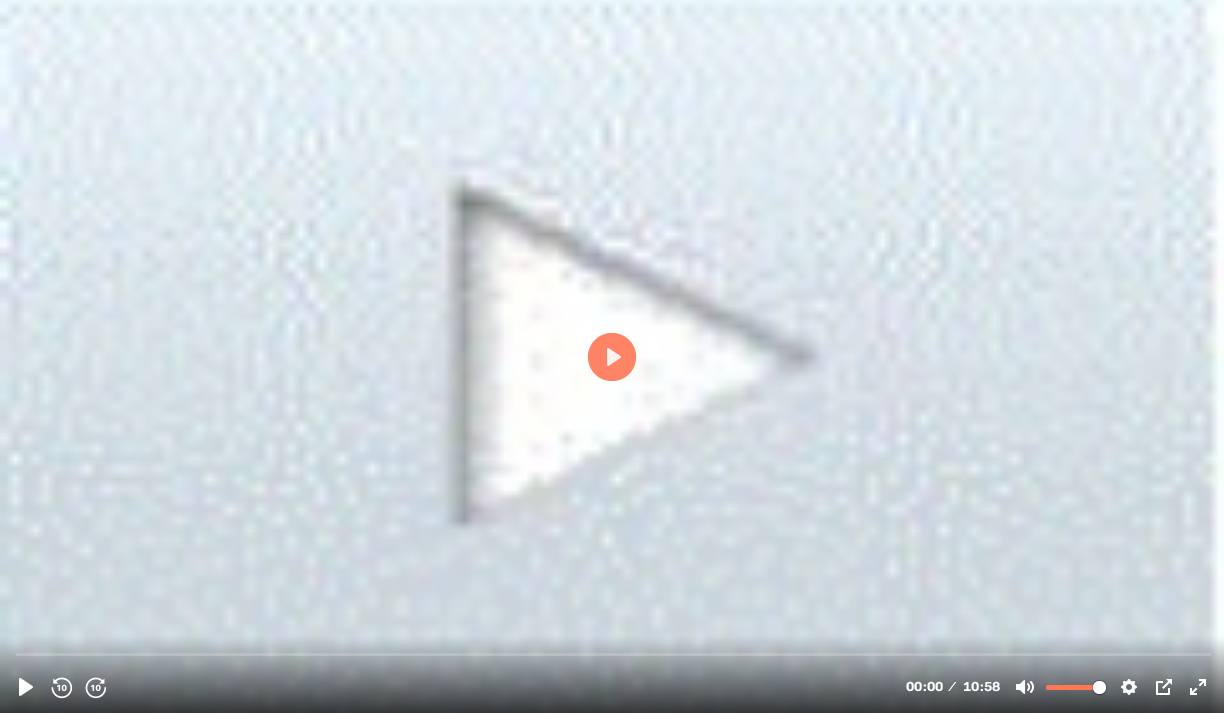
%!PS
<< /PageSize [1224 713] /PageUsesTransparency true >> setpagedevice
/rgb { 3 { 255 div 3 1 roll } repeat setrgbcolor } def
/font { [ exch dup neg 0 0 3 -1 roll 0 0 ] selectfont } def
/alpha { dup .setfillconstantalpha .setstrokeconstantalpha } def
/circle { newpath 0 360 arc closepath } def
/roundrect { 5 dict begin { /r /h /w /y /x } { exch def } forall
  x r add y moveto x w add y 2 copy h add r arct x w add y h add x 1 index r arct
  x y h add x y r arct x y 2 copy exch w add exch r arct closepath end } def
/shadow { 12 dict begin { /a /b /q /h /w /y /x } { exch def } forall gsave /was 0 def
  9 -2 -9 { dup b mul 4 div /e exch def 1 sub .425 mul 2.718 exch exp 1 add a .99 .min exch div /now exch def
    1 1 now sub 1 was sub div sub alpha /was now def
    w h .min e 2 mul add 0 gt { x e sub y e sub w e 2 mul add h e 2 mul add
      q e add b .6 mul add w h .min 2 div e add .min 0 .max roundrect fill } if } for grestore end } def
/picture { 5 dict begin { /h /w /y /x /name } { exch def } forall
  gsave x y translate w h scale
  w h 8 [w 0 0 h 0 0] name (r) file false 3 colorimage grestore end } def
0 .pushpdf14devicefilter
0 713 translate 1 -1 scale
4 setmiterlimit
255 255 255 rgb
0 0 1224 713 rectfill
(img/1.rgb) 0 0 1224 713 picture
0.9 alpha
255 119 85 rgb
612 357 24 circle fill
1 alpha
(img/2.rgb) 607 348 14 18 picture
0.2 alpha
255 255 255 rgb
16 653 1195 3 rectfill
1 alpha
(img/3.rgb) 19 678 14 18 picture
(img/4.rgb) 51 677 22 22 picture
(img/5.rgb) 85 677 22 22 picture
(img/6.rgb) 1016 680 18 14 picture
255 119 85 rgb
1046 685 60 5 2.5 roundrect fill
0.2 alpha
35 40 47 rgb
1099.5 687.5 7 circle stroke
1 alpha
1093 682 13 13 6.5 0.5 0.15 shadow
255 255 255 rgb
1099.5 687.5 6.5 circle fill
(img/7.rgb) 1121 679 16 16 picture
(img/8.rgb) 1156 679 16 16 picture
(img/9.rgb) 1190 679 16 16 picture
/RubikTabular-SemiBold 13 font
906 691 moveto (00:00) show
/Rubik-SemiBold 13 font
951 691 moveto (⁄) show
/RubikTabular-SemiBold 13 font
963 691 moveto (10:58) show
.poppdf14devicefilter showpage
